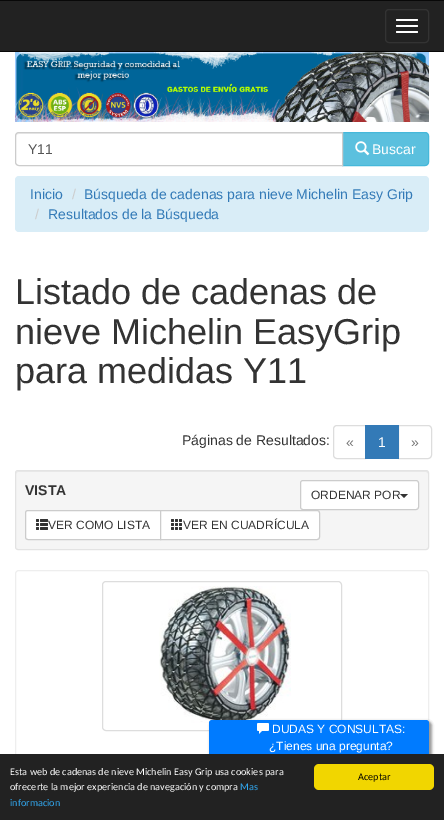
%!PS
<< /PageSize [444 820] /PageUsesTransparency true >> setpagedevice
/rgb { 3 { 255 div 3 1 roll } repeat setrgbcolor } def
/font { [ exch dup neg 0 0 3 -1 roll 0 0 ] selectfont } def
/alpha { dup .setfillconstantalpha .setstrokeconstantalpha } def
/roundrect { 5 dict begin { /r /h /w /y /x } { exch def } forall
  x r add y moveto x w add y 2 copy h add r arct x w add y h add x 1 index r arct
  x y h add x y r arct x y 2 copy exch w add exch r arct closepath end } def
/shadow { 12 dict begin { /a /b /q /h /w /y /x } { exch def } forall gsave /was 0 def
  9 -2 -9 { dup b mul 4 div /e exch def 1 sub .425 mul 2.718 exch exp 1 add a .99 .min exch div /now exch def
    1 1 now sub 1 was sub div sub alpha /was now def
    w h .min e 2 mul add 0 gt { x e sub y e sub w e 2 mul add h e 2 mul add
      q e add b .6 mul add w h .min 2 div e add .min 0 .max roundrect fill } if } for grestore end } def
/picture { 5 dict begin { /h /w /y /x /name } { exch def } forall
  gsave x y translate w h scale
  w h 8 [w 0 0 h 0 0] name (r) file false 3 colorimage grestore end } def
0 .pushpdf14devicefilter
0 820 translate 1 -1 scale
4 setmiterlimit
255 255 255 rgb
0 0 444 820 rectfill
[
  [0 1 444 50 34 34 34]
  [0 0 444 1 8 8 8]
  [0 51 444 1 8 8 8]
] { aload pop rgb rectfill } forall
51 51 51 rgb
385.5 9.5 43 33 3.5 roundrect stroke
255 255 255 rgb
396 19 22 2 1 roundrect fill
396 25 22 2 1 roundrect fill
396 31 22 2 1 roundrect fill
(img/1.rgb) 15 52 414 70 picture
91 192 222 rgb
342.5 132.5 moveto 425 132.5 lineto 427 132.5 428.5 134 428.5 136 curveto 428.5 162 lineto 428.5 164 427 165.5 425 165.5 curveto 342.5 165.5 lineto closepath gsave fill grestore
70 184 218 rgb
stroke
255 255 255 rgb
19 132 moveto 343 132 lineto 343 166 lineto 19 166 lineto 17 166 15 164 15 162 curveto 15 136 lineto 15 134 17 132 19 132 curveto closepath fill
236 236 236 rgb
19 134 moveto 342 134 lineto 342 133 lineto 19 133 lineto 17 133 16 135 16 137 curveto 16 135 17 134 19 134 curveto closepath fill
204 204 204 rgb
19 132.5 moveto 342.5 132.5 lineto 342.5 165.5 lineto 19 165.5 lineto 17 165.5 15.5 164 15.5 162 curveto 15.5 136 lineto 15.5 134 17 132.5 19 132.5 curveto closepath stroke
(img/2.rgb) 355 141 15 15 picture
217 237 247 rgb
15 176 414 56 4 roundrect fill
221 221 221 rgb
337 425.5 moveto 365.5 425.5 lineto 365.5 458.5 lineto 337 458.5 lineto 335 458.5 333.5 457 333.5 455 curveto 333.5 429 lineto 333.5 427 335 425.5 337 425.5 curveto closepath stroke
398.5 425.5 moveto 428 425.5 lineto 430 425.5 431.5 427 431.5 429 curveto 431.5 455 lineto 431.5 457 430 458.5 428 458.5 curveto 398.5 458.5 lineto closepath stroke
51 122 183 rgb
365 425 34 34 rectfill
245 245 245 rgb
15 470 414 80 3 roundrect fill
233 233 233 rgb
18 472 moveto 426 472 lineto 427 472 428 473 428 474 curveto 428 473 428 472 427 471 curveto 18 471 lineto 16 472 lineto 16 474 lineto 16 473 17 472 18 472 curveto closepath fill
227 227 227 rgb
15.5 470.5 413 79 2.5 roundrect stroke
255 255 255 rgb
300.5 480.5 118 29 2.5 roundrect gsave fill grestore
204 204 204 rgb
stroke
51 51 51 rgb
400 494 moveto 408 494 lineto 404 498 lineto closepath fill
255 255 255 rgb
28 510.5 moveto 160.5 510.5 lineto 160.5 539.5 lineto 28 539.5 lineto 26.5 539.5 25.5 538.5 25.5 537 curveto 25.5 513 lineto 25.5 511.5 26.5 510.5 28 510.5 curveto closepath gsave fill grestore
204 204 204 rgb
stroke
(img/3.rgb) 36 519 12 11 picture
255 255 255 rgb
160.5 510.5 moveto 317 510.5 lineto 318.5 510.5 319.5 511.5 319.5 513 curveto 319.5 537 lineto 319.5 538.5 318.5 539.5 317 539.5 curveto 160.5 539.5 lineto closepath gsave fill grestore
204 204 204 rgb
stroke
(img/4.rgb) 171 519 11 11 picture
238 238 238 rgb
15.5 570.5 413 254 3.5 roundrect stroke
221 221 221 rgb
102.5 581.5 239 149 3.5 roundrect stroke
(img/5.rgb) 159 586 132 137 picture
153 153 153 rgb
211 722 220 60 3 1.5 1 shadow
211 722 220 60 3 1.5 1 shadow
0 123 255 rgb
209 720 220 60 3 roundrect fill
(img/6.rgb) 257 723 12 11 picture
34 34 34 rgb
0 754 444 66 rectfill
241 214 0 rgb
314 764 120 26 5 roundrect fill
/LiberationSans-Regular 14 font
85 85 85 rgb
28 154 moveto (Y11) show
255 255 255 rgb
372 154 moveto (Buscar) show
51 122 183 rgb
30 199 moveto (Inicio) show
204 204 204 rgb
72 199 moveto (/) show
51 122 183 rgb
84 199 moveto (Búsqueda de cadenas para nieve Michelin Easy Grip) show
204 204 204 rgb
35 219 moveto (/) show
51 122 183 rgb
48 219 moveto (Resultados de la Búsqueda) show
/LiberationSans-Regular 36 font
51 51 51 rgb
[
  [(Listado de cadenas de) 15 304]
  [(nieve Michelin EasyGrip) 15 344]
  [(para medidas Y11) 15 383]
] { aload pop moveto show } forall
/LiberationSans-Regular 14 font
182 445 moveto (Páginas de Resultados:) show
119 119 119 rgb
346 447 moveto («) show
255 255 255 rgb
378 447 moveto (1) show
119 119 119 rgb
411 447 moveto (») show
/LiberationSans-Bold 14 font
51 51 51 rgb
25 495 moveto (VISTA) show
/LiberationSans-Regular 12 font
[
  [(ORDENAR POR) 311 499]
  [(VER COMO LISTA) 48 529]
  [(VER EN CUADRÍCULA) 183 529]
] { aload pop moveto show } forall
255 255 255 rgb
272 733 moveto (DUDAS Y CONSULTAS:) show
269 750 moveto (¿Tienes una pregunta?) show
/Carlito-Regular 10.2 font
10 775 moveto (Esta web de cadenas de nieve Michelin Easy Grip usa cookies para) show
10 790 moveto (ofrecerte la mejor experiencia de navegación y compra) show
49 168 240 rgb
240 790 moveto (Mas) show
10 806 moveto (informacion) show
0 0 0 rgb
358 780 moveto (Aceptar) show
.poppdf14devicefilter showpage
